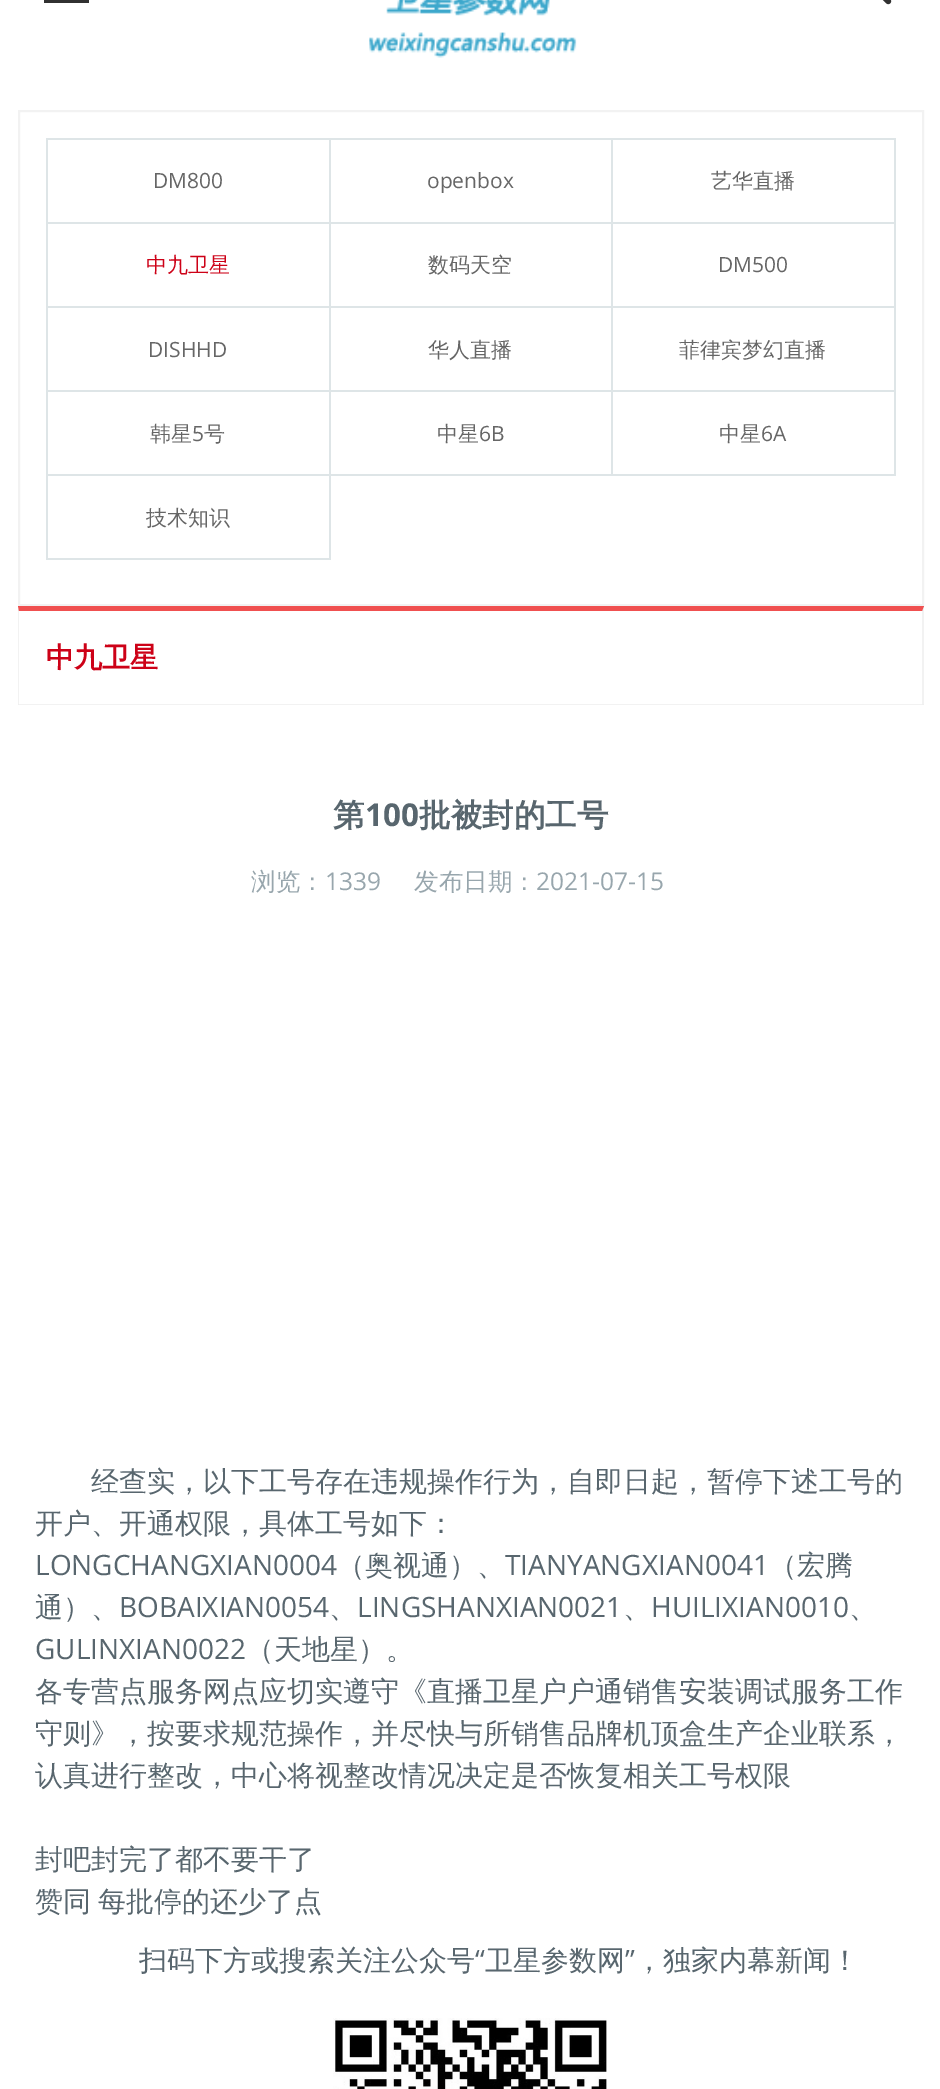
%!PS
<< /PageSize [940 2089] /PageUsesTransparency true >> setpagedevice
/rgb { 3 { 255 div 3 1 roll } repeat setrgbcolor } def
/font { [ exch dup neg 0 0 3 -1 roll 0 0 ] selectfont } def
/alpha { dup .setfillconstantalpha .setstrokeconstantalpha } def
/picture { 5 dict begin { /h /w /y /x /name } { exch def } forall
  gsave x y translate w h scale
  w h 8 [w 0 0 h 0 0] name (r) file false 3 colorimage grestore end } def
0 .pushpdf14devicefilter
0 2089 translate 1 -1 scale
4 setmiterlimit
255 255 255 rgb
0 0 940 2089 rectfill
49 49 49 rgb
44 0 45 3 rectfill
(img/1.rgb) 369 0 208 58 picture
(img/2.rgb) 882 0 10 5 picture
242 242 242 rgb
2 setlinewidth
19 111 904 494 rectstroke
[
  [46 138 850 2 222 229 231]
  [46 138 2 422 222 229 231]
  [329 140 2 420 222 229 231]
  [47 222 284 2 222 229 231]
  [611 140 2 336 222 229 231]
  [331 222 282 2 222 229 231]
  [894 140 2 336 222 229 231]
  [613 222 283 2 222 229 231]
  [47 306 849 2 222 229 231]
  [47 390 849 2 222 229 231]
  [47 474 849 2 222 229 231]
  [47 558 284 2 222 229 231]
] { aload pop rgb rectfill } forall
240 80 80 rgb
18 606 moveto 924 606 lineto 922 611 lineto 19 611 lineto closepath fill
0.05 alpha
0 0 0 rgb
924 606 moveto 924 705 lineto 922 704 lineto 922 611 lineto closepath fill
924 705 moveto 18 705 lineto 19 704 lineto 922 704 lineto closepath fill
18 705 moveto 18 606 lineto 19 611 lineto 19 704 lineto closepath fill
1 alpha
(img/3.rgb) 333 2018 274 71 picture
/OpenSans-Regular 21 font
102 102 102 rgb
153 188 moveto (DM800) show
427 188 moveto (openbox) show
/WenQuanYiZenHei-Medium 21 font
711 188 moveto (艺华直播) show
205 1 23 rgb
146 272 moveto (中九卫星) show
102 102 102 rgb
428 272 moveto (数码天空) show
/OpenSans-Regular 21 font
718 272 moveto (DM500) show
148 357 moveto (DISHHD) show
/WenQuanYiZenHei-Medium 21 font
[
  [(华人直播) 428 357]
  [(菲律宾梦幻直播) 679 357]
  [(韩星) 150 441]
] { aload pop moveto show } forall
/OpenSans-Regular 21 font
192 441 moveto (5) show
/WenQuanYiZenHei-Medium 21 font
204 441 moveto (号) show
437 441 moveto (中星) show
/OpenSans-Regular 21 font
479 441 moveto (6B) show
/WenQuanYiZenHei-Medium 21 font
719 441 moveto (中星) show
/OpenSans-Regular 21 font
761 441 moveto (6A) show
/WenQuanYiZenHei-Medium 21 font
146 525 moveto (技术知识) show
/WenQuanYiZenHei-Bold 28 font
205 1 23 rgb
46 667 moveto (中九卫星) show
/WenQuanYiZenHei-Bold 31.5 font
88 102 110 rgb
333 826 moveto (第) show
/OpenSans-Bold 31.5 font
365 826 moveto (100) show
/WenQuanYiZenHei-Bold 31.5 font
419 826 moveto (批被封的工号) show
/WenQuanYiZenHei-Medium 24.5 font
152 166 173 rgb
251 890 moveto (浏览：) show
/OpenSans-Regular 24.5 font
325 890 moveto (1339) show
/WenQuanYiZenHei-Medium 24.5 font
414 890 moveto (发布日期：) show
/OpenSans-Regular 24.5 font
536 890 moveto (2021-07-15) show
/WenQuanYiZenHei-Medium 28 font
88 102 110 rgb
91 1491 moveto (经查实，以下工号存在违规操作行为，自即日起，暂停下述工号的) show
35 1533 moveto (开户、开通权限，具体工号如下：) show
/OpenSans-Regular 28 font
35 1575 moveto (LONGCHANGXIAN0004) show
/WenQuanYiZenHei-Medium 28 font
337 1575 moveto (（奥视通）、) show
/OpenSans-Regular 28 font
505 1575 moveto (TIANYANGXIAN0041) show
/WenQuanYiZenHei-Medium 28 font
769 1575 moveto (（宏腾) show
35 1617 moveto (通）、) show
/OpenSans-Regular 28 font
119 1617 moveto (BOBAIXIAN0054) show
/WenQuanYiZenHei-Medium 28 font
329 1617 moveto (、) show
/OpenSans-Regular 28 font
357 1617 moveto (LINGSHANXIAN0021) show
/WenQuanYiZenHei-Medium 28 font
623 1617 moveto (、) show
/OpenSans-Regular 28 font
651 1617 moveto (HUILIXIAN0010) show
/WenQuanYiZenHei-Medium 28 font
849 1617 moveto (、) show
/OpenSans-Regular 28 font
35 1659 moveto (GULINXIAN0022) show
/WenQuanYiZenHei-Medium 28 font
[
  [(（天地星）。) 246 1659]
  [(各专营点服务网点应切实遵守《直播卫星户户通销售安装调试服务工作) 35 1701]
  [(守则》，按要求规范操作，并尽快与所销售品牌机顶盒生产企业联系，) 35 1743]
  [(认真进行整改，中心将视整改情况决定是否恢复相关工号权限) 35 1785]
  [(封吧封完了都不要干了) 35 1869]
] { aload pop moveto show } forall
35 1911 moveto -1 0 32 (赞同 每批停的还少了点) widthshow
139 1970 moveto (扫码下方或搜索关注公众号) show
/OpenSans-Regular 28 font
475 1970 moveto (“) show
/WenQuanYiZenHei-Medium 28 font
485 1970 moveto (卫星参数网) show
/OpenSans-Regular 28 font
625 1970 moveto (”) show
/WenQuanYiZenHei-Medium 28 font
635 1970 moveto (，独家内幕新闻！) show
.poppdf14devicefilter showpage
